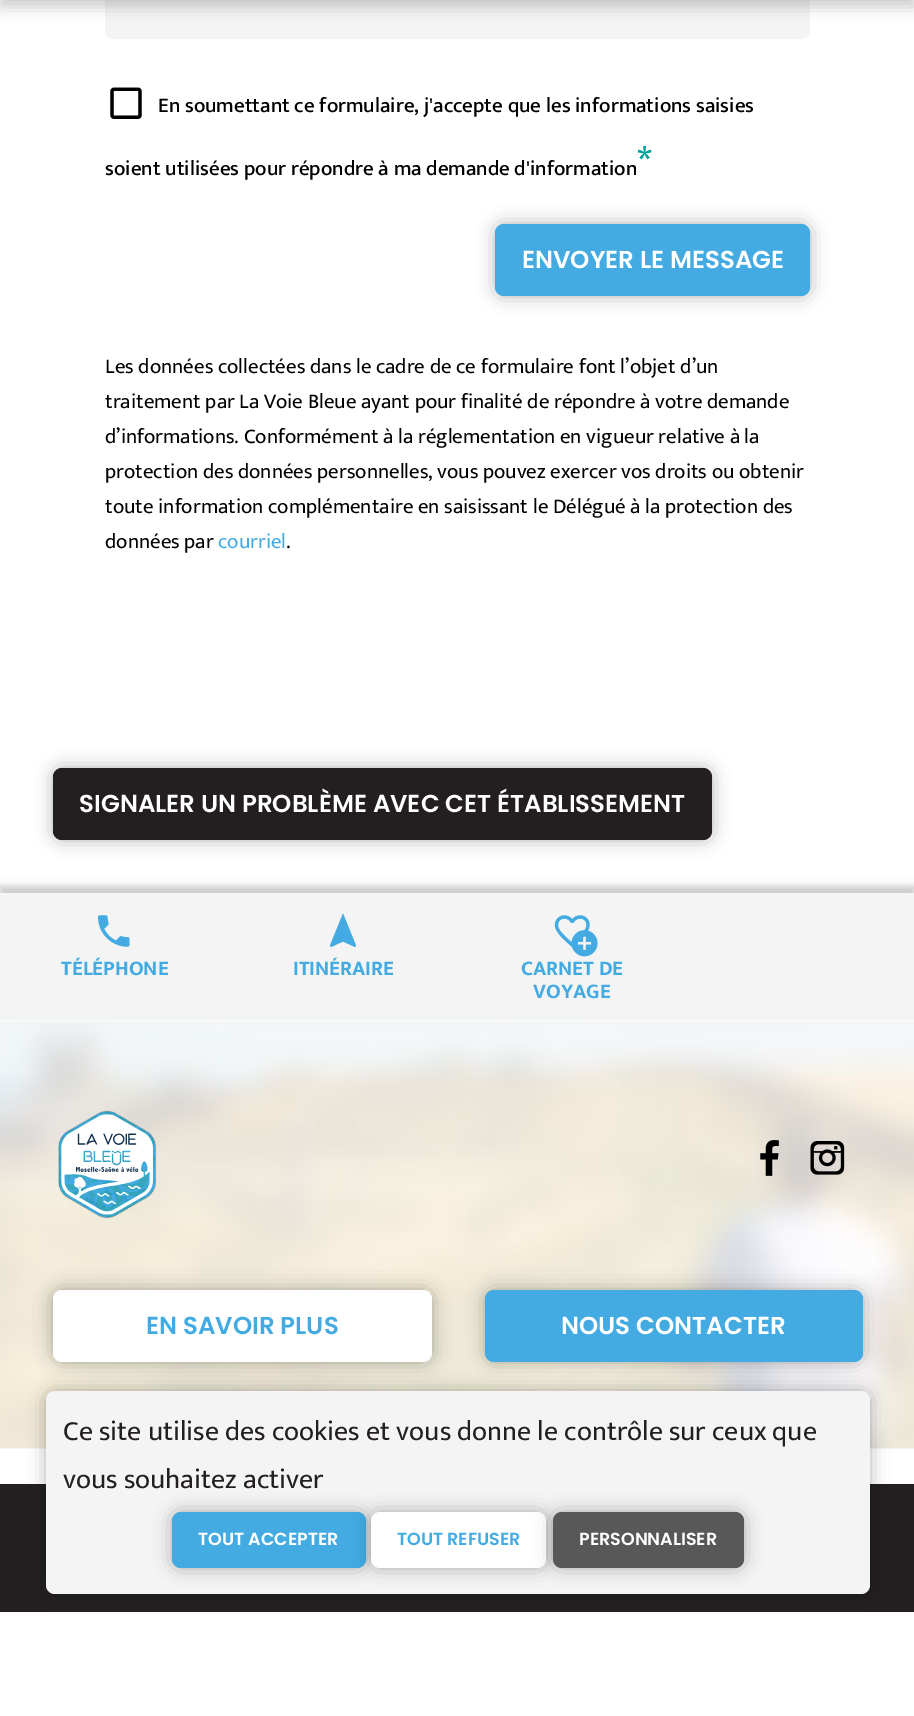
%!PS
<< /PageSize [914 1716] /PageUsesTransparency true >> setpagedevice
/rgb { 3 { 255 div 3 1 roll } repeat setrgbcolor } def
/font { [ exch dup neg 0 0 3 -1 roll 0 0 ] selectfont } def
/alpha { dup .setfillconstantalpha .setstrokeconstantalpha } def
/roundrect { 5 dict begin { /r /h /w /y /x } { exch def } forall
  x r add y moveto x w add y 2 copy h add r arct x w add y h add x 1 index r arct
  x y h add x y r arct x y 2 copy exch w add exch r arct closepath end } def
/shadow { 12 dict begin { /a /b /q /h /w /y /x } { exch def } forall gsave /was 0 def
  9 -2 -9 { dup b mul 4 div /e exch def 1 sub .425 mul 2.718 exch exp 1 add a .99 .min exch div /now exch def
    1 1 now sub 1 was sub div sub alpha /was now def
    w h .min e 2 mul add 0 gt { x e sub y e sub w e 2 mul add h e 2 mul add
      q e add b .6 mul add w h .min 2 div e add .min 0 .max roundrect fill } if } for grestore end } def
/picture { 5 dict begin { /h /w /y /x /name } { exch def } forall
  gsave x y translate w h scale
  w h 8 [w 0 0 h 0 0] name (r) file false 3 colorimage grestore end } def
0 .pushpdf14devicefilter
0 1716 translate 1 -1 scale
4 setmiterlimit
255 255 255 rgb
0 0 914 1716 rectfill
244 244 244 rgb
105 -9 705 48 9 roundrect fill
0 0 0 rgb
0 -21 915 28 0 7 0.2 shadow
(img/1.rgb) 110 87 32 32 picture
495 224 315 72 9 9 0.3 shadow
67 171 226 rgb
495 224 315 72 9 roundrect fill
0 0 0 rgb
53 768 659 72 9 9 0.3 shadow
35 31 32 rgb
53 768 659 72 9 roundrect fill
(img/5.rgb) 0 1020 914 429 picture
0 0 0 rgb
0 886 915 127 0 3.5 0.2 shadow
244 244 244 rgb
0 893 914 127 rectfill
(img/2.rgb) 98 915 32 32 picture
67 171 226 rgb
343 913.5 moveto 356 945.5 lineto 355 947 lineto 343 941.5 lineto 331 947 lineto 330 945.5 lineto closepath fill
(img/3.rgb) 554 915 36 33 picture
(img/4.rgb) 571 930 27 27 picture
(img/6.rgb) 58 1110 99 109 picture
(img/7.rgb) 760 1140 19 36 picture
(img/8.rgb) 810 1141 35 34 picture
0 0 0 rgb
53 1290 379 72 9 9 0.3 shadow
255 255 255 rgb
53 1290 379 72 9 roundrect fill
0 0 0 rgb
485 1290 378 72 9 9 0.3 shadow
67 171 226 rgb
485 1290 378 72 9 roundrect fill
35 31 32 rgb
0 1484 914 128 rectfill
0 0 0 rgb
46 1391 824 203 9 9 0.3 shadow
244 244 244 rgb
46 1391 824 203 9 roundrect fill
0 0 0 rgb
172 1512 194 56 9 9 0.3 shadow
67 171 226 rgb
172 1512 194 56 9 roundrect fill
0 0 0 rgb
371 1512 175 56 9 9 0.3 shadow
255 255 255 rgb
371 1512 175 56 9 roundrect fill
0 0 0 rgb
553 1512 191 56 9 9 0.3 shadow
88 88 88 rgb
553 1512 191 56 9 roundrect fill
/MuktaMahee-Medium 21 font
0 0 0 rgb
158 112 moveto (En soumettant ce formulaire, j'accepte que les informations saisies) show
/MuktaMahee-Medium 42 font
0 161 155 rgb
637 175 moveto (*) show
/MuktaMahee-Medium 21 font
0 0 0 rgb
105 175 moveto (soient utilisées pour répondre à ma demande d'information) show
/Poppins-SemiBold 24.5 font
255 255 255 rgb
522 268 moveto (ENVOYER LE MESSAGE) show
/MuktaMahee-Regular 21 font
0 0 0 rgb
[
  [(Les données collectées dans le cadre de ce formulaire font l’objet d’un) 105 373]
  [(traitement par La Voie Bleue ayant pour finalité de répondre à votre demande) 105 408]
  [(d’informations. Conformément à la réglementation en vigueur relative à la) 105 443]
  [(protection des données personnelles, vous pouvez exercer vos droits ou obtenir) 105 478]
  [(toute information complémentaire en saisissant le Délégué à la protection des) 105 513]
  [(données par) 105 548]
] { aload pop moveto show } forall
67 171 226 rgb
218 548 moveto (courriel) show
0 0 0 rgb
286 548 moveto (.) show
/Poppins-SemiBold 24.5 font
255 255 255 rgb
79 812 moveto (SIGNALER UN PROBLÈME AVEC CET ÉTABLISSEMENT) show
/MuktaMahee-Bold 21 font
67 171 226 rgb
[
  [(TÉLÉPHONE) 61 975]
  [(ITINÉRAIRE) 293 975]
  [(CARNET DE) 521 975]
  [(VOYAGE) 533 998]
] { aload pop moveto show } forall
/Poppins-SemiBold 24.5 font
146 1334 moveto (EN SAVOIR PLUS) show
255 255 255 rgb
561 1334 moveto (NOUS CONTACTER) show
/MuktaMahee-Regular 28 font
35 31 32 rgb
63 1440 moveto (Ce site utilise des cookies et vous donne le contrôle sur ceux que) show
63 1488 moveto (vous souhaitez activer) show
/Poppins-SemiBold 17.5 font
255 255 255 rgb
198 1545 moveto (TOUT ACCEPTER) show
67 171 226 rgb
397 1545 moveto (TOUT REFUSER) show
255 255 255 rgb
579 1545 moveto (PERSONNALISER) show
.poppdf14devicefilter showpage
